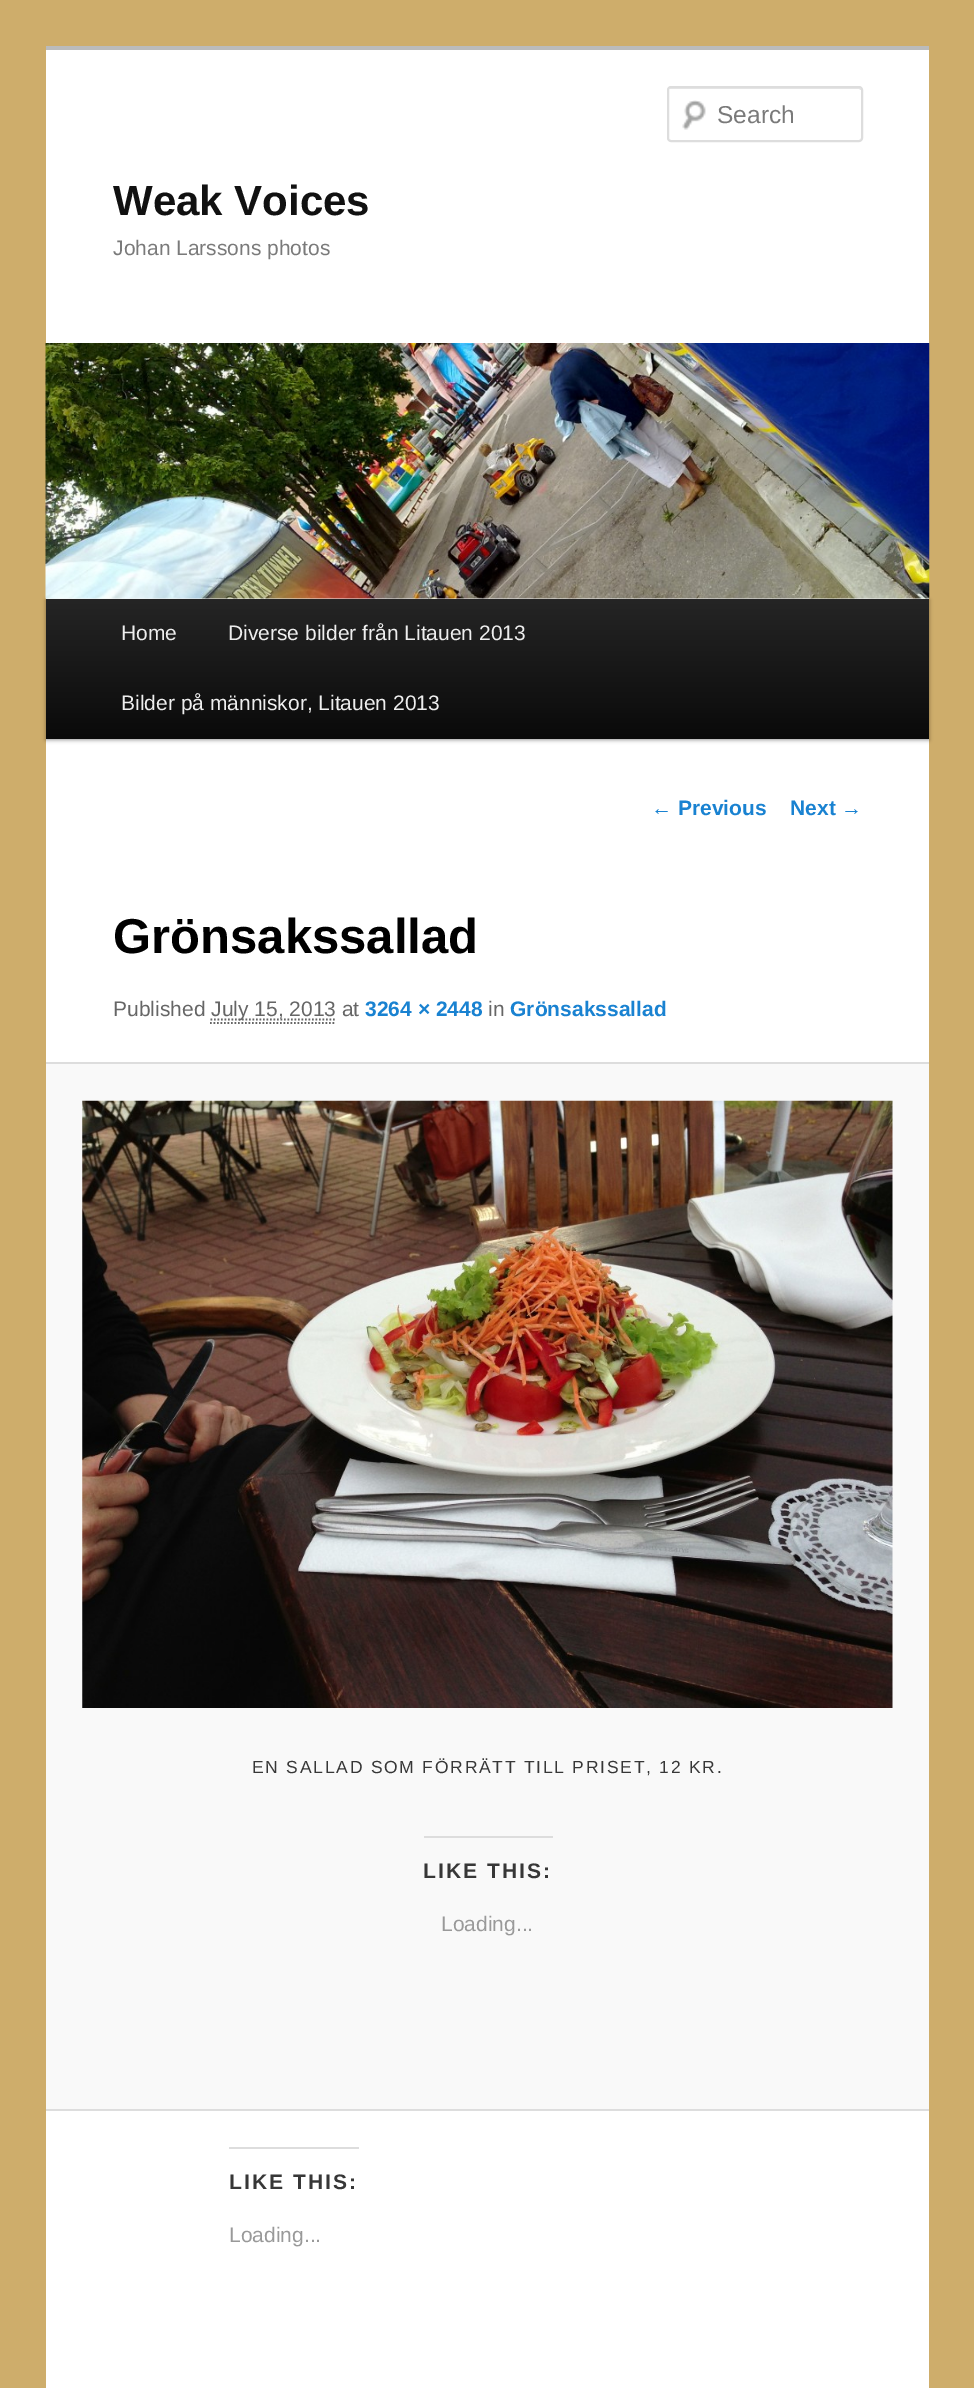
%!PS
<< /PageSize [974 2388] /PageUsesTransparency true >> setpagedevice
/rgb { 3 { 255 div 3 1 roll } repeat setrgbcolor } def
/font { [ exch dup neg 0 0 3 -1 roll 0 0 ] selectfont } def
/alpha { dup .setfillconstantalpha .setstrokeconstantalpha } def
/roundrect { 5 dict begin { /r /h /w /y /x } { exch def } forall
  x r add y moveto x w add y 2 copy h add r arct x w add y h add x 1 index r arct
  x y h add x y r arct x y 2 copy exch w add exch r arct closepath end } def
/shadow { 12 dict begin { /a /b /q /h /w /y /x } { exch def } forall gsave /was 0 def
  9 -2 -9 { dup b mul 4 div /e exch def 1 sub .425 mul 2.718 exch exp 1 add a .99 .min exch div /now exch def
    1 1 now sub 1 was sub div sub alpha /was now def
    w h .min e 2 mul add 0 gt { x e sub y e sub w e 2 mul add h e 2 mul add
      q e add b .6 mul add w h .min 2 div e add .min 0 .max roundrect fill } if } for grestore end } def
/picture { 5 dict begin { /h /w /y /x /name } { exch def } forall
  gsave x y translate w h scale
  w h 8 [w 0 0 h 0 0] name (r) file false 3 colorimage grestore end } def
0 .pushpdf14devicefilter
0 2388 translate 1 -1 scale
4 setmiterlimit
206 173 107 rgb
0 0 974 2388 rectfill
255 255 255 rgb
46 50 883 2338 rectfill
187 187 187 rgb
46 46 883 4 rectfill
(img/1.rgb) 682 100 24 30 picture
230 230 230 rgb
670 89 moveto 859 89 lineto 861 90 lineto 861 91 lineto 861 90 lineto 861 89 860 88 859 88 curveto 671 88 lineto 670 88 669 89 669 89 curveto closepath fill
221 221 221 rgb
2 setlinewidth
668 87 194 54 3 roundrect stroke
0 0 0 rgb
46 600 883 140 0 2 0.4 shadow
(img/2.rgb) 45 343 885 256 picture
gsave 46 599 moveto 929 599 lineto 929 739 lineto 46 739 lineto closepath clip newpath
<< /ShadingType 2 /ColorSpace /DeviceRGB /Coords [487 599 487 739] /Extend [true true] /Function << /FunctionType 2 /Domain [0 1] /C0 [0.145 0.145 0.145] /C1 [0.039 0.039 0.039] /N 1 >> >> shfill grestore
102 102 102 rgb
1.8 setlinewidth
[1.75 1.75] 0 setdash
210 1023 moveto 336 1023 lineto stroke
210.5 1019.5 moveto 335.5 1019.5 lineto stroke
[
  [46 1064 883 1045 249 249 249]
  [46 1062 883 2 221 221 221]
  [46 2109 883 2 221 221 221]
] { aload pop rgb rectfill } forall
(img/3.rgb) 82 1100 811 608 picture
424 1836 129 2 rectfill
229 2147 130 2 rectfill
/LiberationSans-Regular 24.5 font
122 122 122 rgb
717 123 moveto (Search) show
/LiberationSans-Bold 42 font
17 17 17 rgb
113 215 moveto (Weak Voices) show
/LiberationSans-Regular 21 font
122 122 122 rgb
113 255 moveto (Johan Larssons photos) show
238 238 238 rgb
[
  [(Home) 121 640]
  [(Diverse bilder från Litauen 2013) 228 640]
  [(Bilder på människor, Litauen 2013) 121 710]
] { aload pop moveto show } forall
/LiberationSans-Bold 21 font
25 130 209 rgb
651 815 moveto (← Previous) show
790 815 moveto (Next →) show
/LiberationSans-Bold 49 font
0 0 0 rgb
113 953 moveto (Grönsakssallad) show
/LiberationSans-Regular 21 font
102 102 102 rgb
113 1016 moveto (Published) show
211 1016 moveto (July 15, 2013 at) show
/LiberationSans-Bold 21 font
25 130 209 rgb
365 1016 moveto (3264 × 2448) show
/LiberationSans-Regular 21 font
102 102 102 rgb
488 1016 moveto (in) show
/LiberationSans-Bold 21 font
25 130 209 rgb
510 1016 moveto (Grönsakssallad) show
/LiberationSans-Regular 17.5 font
55 55 55 rgb
252 1773 moveto 1.75 0 (EN SALLAD SOM FÖRRÄTT TILL PRISET, 12 KR.) ashow
/LiberationSans-Bold 21 font
423 1878 moveto 2.1 0 (LIKE THIS:) ashow
/LiberationSans-Regular 21 font
153 153 153 rgb
441 1931 moveto (Loading...) show
/LiberationSans-Bold 21 font
55 55 55 rgb
229 2189 moveto 2.1 0 (LIKE THIS:) ashow
/LiberationSans-Regular 21 font
153 153 153 rgb
229 2242 moveto (Loading...) show
.poppdf14devicefilter showpage
